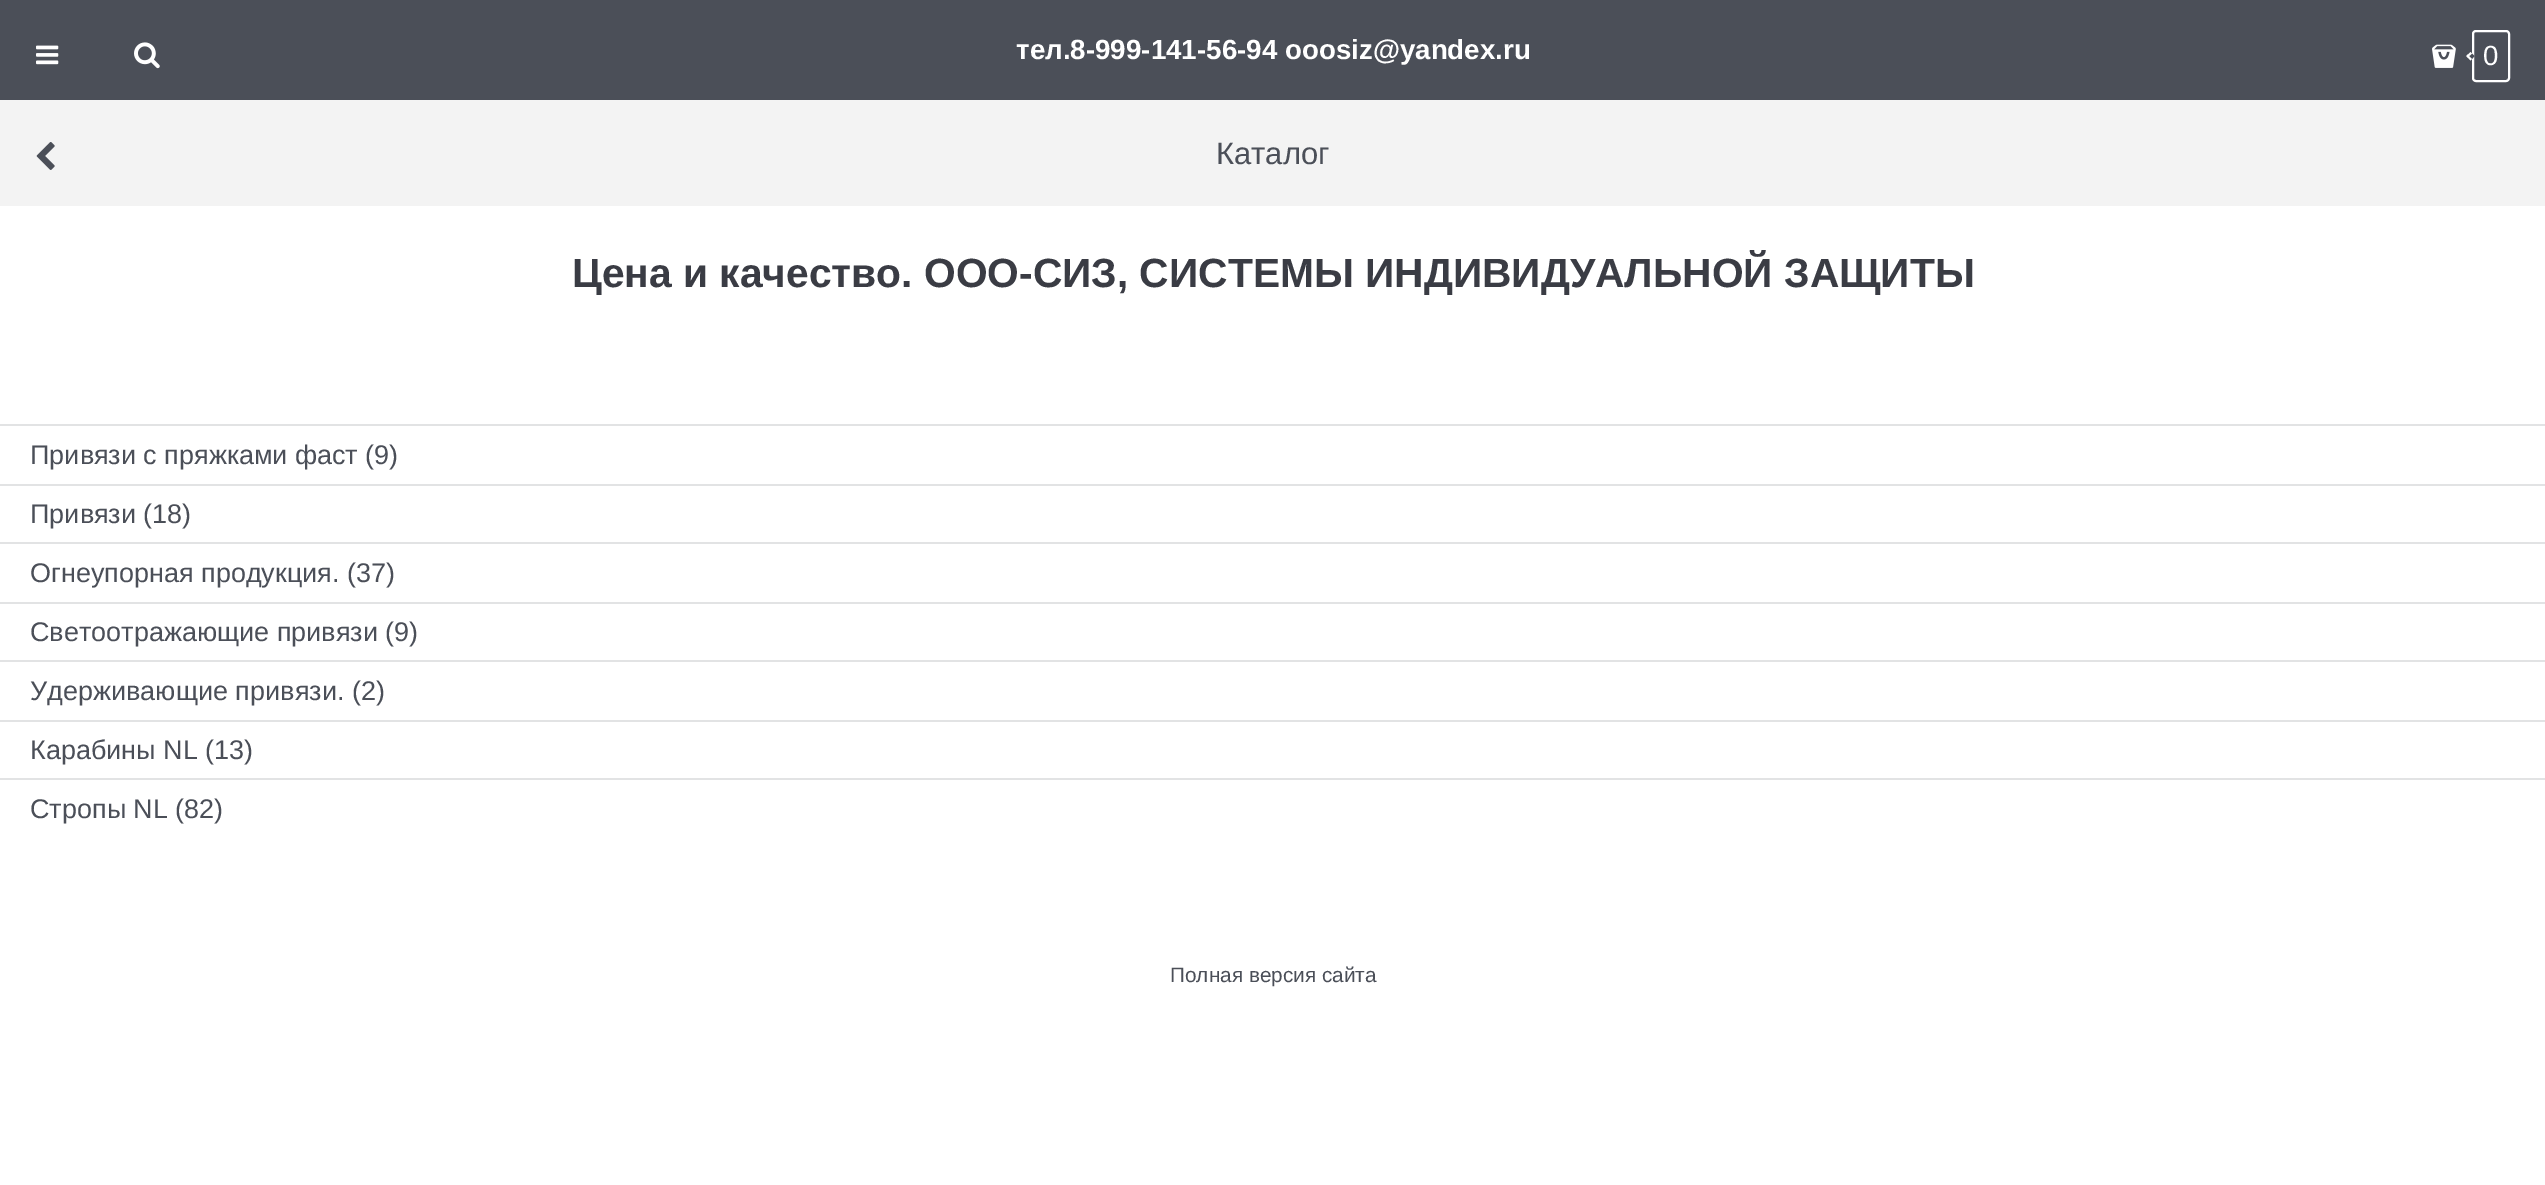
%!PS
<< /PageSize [2545 1185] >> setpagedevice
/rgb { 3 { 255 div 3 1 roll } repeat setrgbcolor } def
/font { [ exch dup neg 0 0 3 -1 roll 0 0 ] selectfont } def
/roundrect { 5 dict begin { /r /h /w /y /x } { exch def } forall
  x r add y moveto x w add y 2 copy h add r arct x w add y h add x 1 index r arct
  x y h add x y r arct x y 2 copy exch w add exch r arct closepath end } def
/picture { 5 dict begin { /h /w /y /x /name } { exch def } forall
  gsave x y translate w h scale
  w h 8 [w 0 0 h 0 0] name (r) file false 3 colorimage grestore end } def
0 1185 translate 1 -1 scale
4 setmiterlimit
255 255 255 rgb
0 0 2545 1185 rectfill
75 79 88 rgb
0 0 2545 100 rectfill
(img/1.rgb) 36 45 23 20 picture
(img/2.rgb) 134 42 26 27 picture
(img/3.rgb) 2432 44 24 24 picture
255 255 255 rgb
2 setlinewidth
2473 31 36 50 3 roundrect stroke
75 79 88 rgb
2469 56 moveto 2472 53.5 lineto 2474.5 56 lineto 2472 59 lineto closepath fill
255 255 255 rgb
2466.5 56 moveto 2470.5 52 lineto 2472 53.5 lineto 2467.5 57.5 lineto closepath fill
2466.5 56 moveto 2467.5 54.5 lineto 2472 59 lineto 2470.5 60.5 lineto closepath fill
243 243 243 rgb
0 100 2545 106 rectfill
(img/4.rgb) 36 142 19 28 picture
[
  [0 424 2545 2 226 227 228]
  [0 484 2545 2 226 227 228]
  [0 542 2545 2 226 227 228]
  [0 602 2545 2 226 227 228]
  [0 660 2545 2 226 227 228]
  [0 720 2545 2 226 227 228]
  [0 778 2545 2 226 227 228]
] { aload pop rgb rectfill } forall
/LiberationSans-Bold 27.75 font
255 255 255 rgb
1016 59 moveto (тел.8-999-141-56-94 ooosiz@yandex.ru) show
/LiberationSans-Regular 27.75 font
2483 65 moveto (0) show
/LiberationSans-Regular 31 font
75 79 88 rgb
1216 164 moveto (Каталог) show
/LiberationSans-Bold 40.75 font
58 60 68 rgb
572 287 moveto (Цена и качество. ООО-СИЗ, СИСТЕМЫ ИНДИВИДУАЛЬНОЙ ЗАЩИТЫ) show
/LiberationSans-Regular 27 font
75 79 88 rgb
[
  [(Привязи с пряжками фаст \(9\)) 30 464]
  [(Привязи \(18\)) 30 523]
  [(Огнеупорная продукция. \(37\)) 30 582]
  [(Светоотражающие привязи \(9\)) 30 641]
  [(Удерживающие привязи. \(2\)) 30 700]
  [(Карабины NL \(13\)) 30 759]
  [(Стропы NL \(82\)) 30 818]
] { aload pop moveto show } forall
/LiberationSans-Regular 20.75 font
1170 982 moveto (Полная версия сайта) show
showpage
